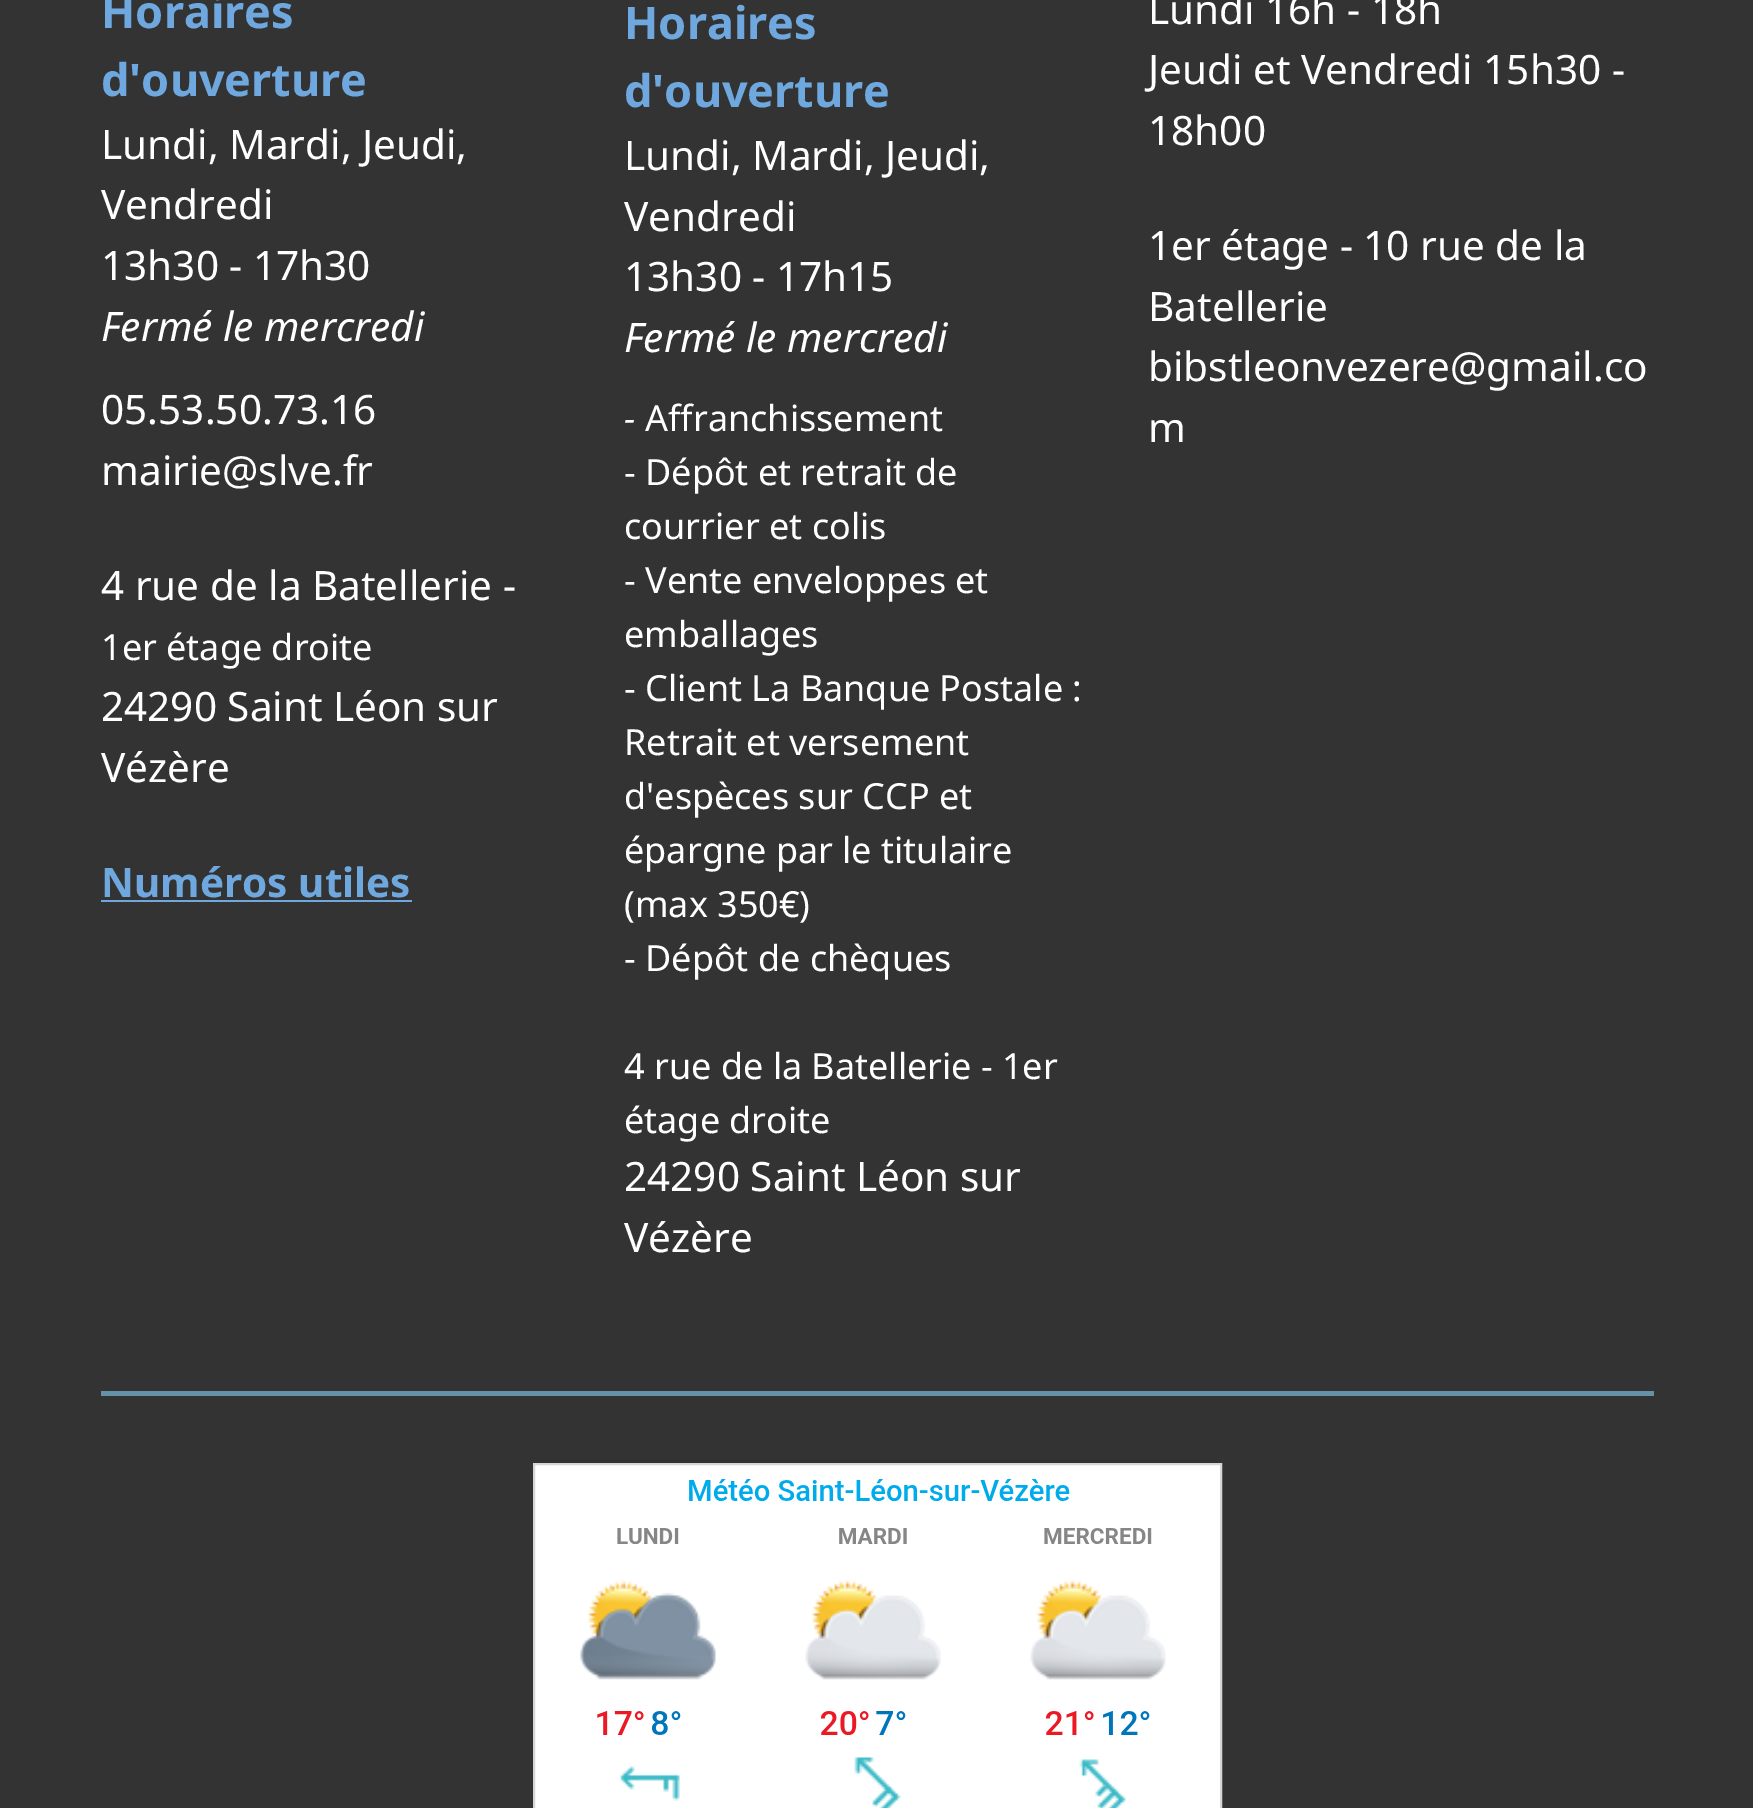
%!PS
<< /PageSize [1753 1808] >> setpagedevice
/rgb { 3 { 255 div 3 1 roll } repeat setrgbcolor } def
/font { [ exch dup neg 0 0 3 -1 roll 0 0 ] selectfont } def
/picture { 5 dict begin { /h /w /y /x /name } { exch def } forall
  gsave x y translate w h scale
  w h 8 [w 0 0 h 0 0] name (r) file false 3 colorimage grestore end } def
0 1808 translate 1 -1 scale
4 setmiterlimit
51 51 51 rgb
0 0 1753 1808 rectfill
110 168 222 rgb
101 900 311 2 rectfill
101 146 167 rgb
101 1391 1553 5 rectfill
255 255 255 rgb
534 1464 moveto 1221 1464 lineto 1221 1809 lineto 534 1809 lineto closepath gsave fill grestore
214 214 214 rgb
2 setlinewidth
stroke
(img/1.rgb) 580 1479 586 329 picture
/NotoSans-Bold 45 font
110 168 222 rgb
101 28 moveto (Horaires) show
101 96 moveto (d'ouverture) show
/NotoSans-Regular 40.5 font
255 255 255 rgb
[
  [(Lundi, Mardi, Jeudi,) 101 159]
  [(Vendredi) 101 219]
  [(13h30 - 17h30) 101 280]
] { aload pop moveto show } forall
/NotoSans-Italic 40.5 font
101 341 moveto (Fermé le mercredi) show
/NotoSans-Regular 40.5 font
[
  [(05.53.50.73.16) 101 424]
  [(mairie@slve.fr) 101 485]
  [(4 rue de la Batellerie -) 101 600]
] { aload pop moveto show } forall
/NotoSans-Regular 36 font
101 660 moveto (1er étage droite) show
/NotoSans-Regular 40.5 font
101 721 moveto (24290 Saint Léon sur) show
101 782 moveto (Vézère) show
/NotoSans-Bold 40.5 font
110 168 222 rgb
101 897 moveto (Numéros utiles) show
/NotoSans-Bold 45 font
624 39 moveto (Horaires) show
624 107 moveto (d'ouverture) show
/NotoSans-Regular 40.5 font
255 255 255 rgb
[
  [(Lundi, Mardi, Jeudi,) 624 170]
  [(Vendredi) 624 231]
  [(13h30 - 17h15) 624 291]
] { aload pop moveto show } forall
/NotoSans-Italic 40.5 font
624 352 moveto (Fermé le mercredi) show
/NotoSans-Italic 36 font
624 431 moveto (-) show
/NotoSans-Regular 36 font
[
  [(Affranchissement) 645 431]
  [(- Dépôt et retrait de) 624 485]
  [(courrier et colis) 624 539]
  [(- Vente enveloppes et) 624 593]
  [(emballages) 624 647]
  [(- Client La Banque Postale :) 624 701]
  [(Retrait et versement) 624 755]
  [(d'espèces sur CCP et) 624 809]
  [(épargne par le titulaire) 624 863]
  [(\(max 350€\)) 624 917]
  [(- Dépôt de chèques) 624 971]
  [(4 rue de la Batellerie - 1er) 624 1079]
  [(étage droite) 624 1133]
] { aload pop moveto show } forall
/NotoSans-Regular 40.5 font
[
  [(24290 Saint Léon sur) 624 1191]
  [(Vézère) 624 1252]
  [(Lundi 16h - 18h) 1148 24]
  [(Jeudi et Vendredi 15h30 -) 1148 84]
  [(18h00) 1148 145]
  [(1er étage - 10 rue de la) 1148 260]
  [(Batellerie) 1148 321]
  [(bibstleonvezere@gmail.co) 1148 381]
  [(m) 1148 442]
] { aload pop moveto show } forall
showpage
